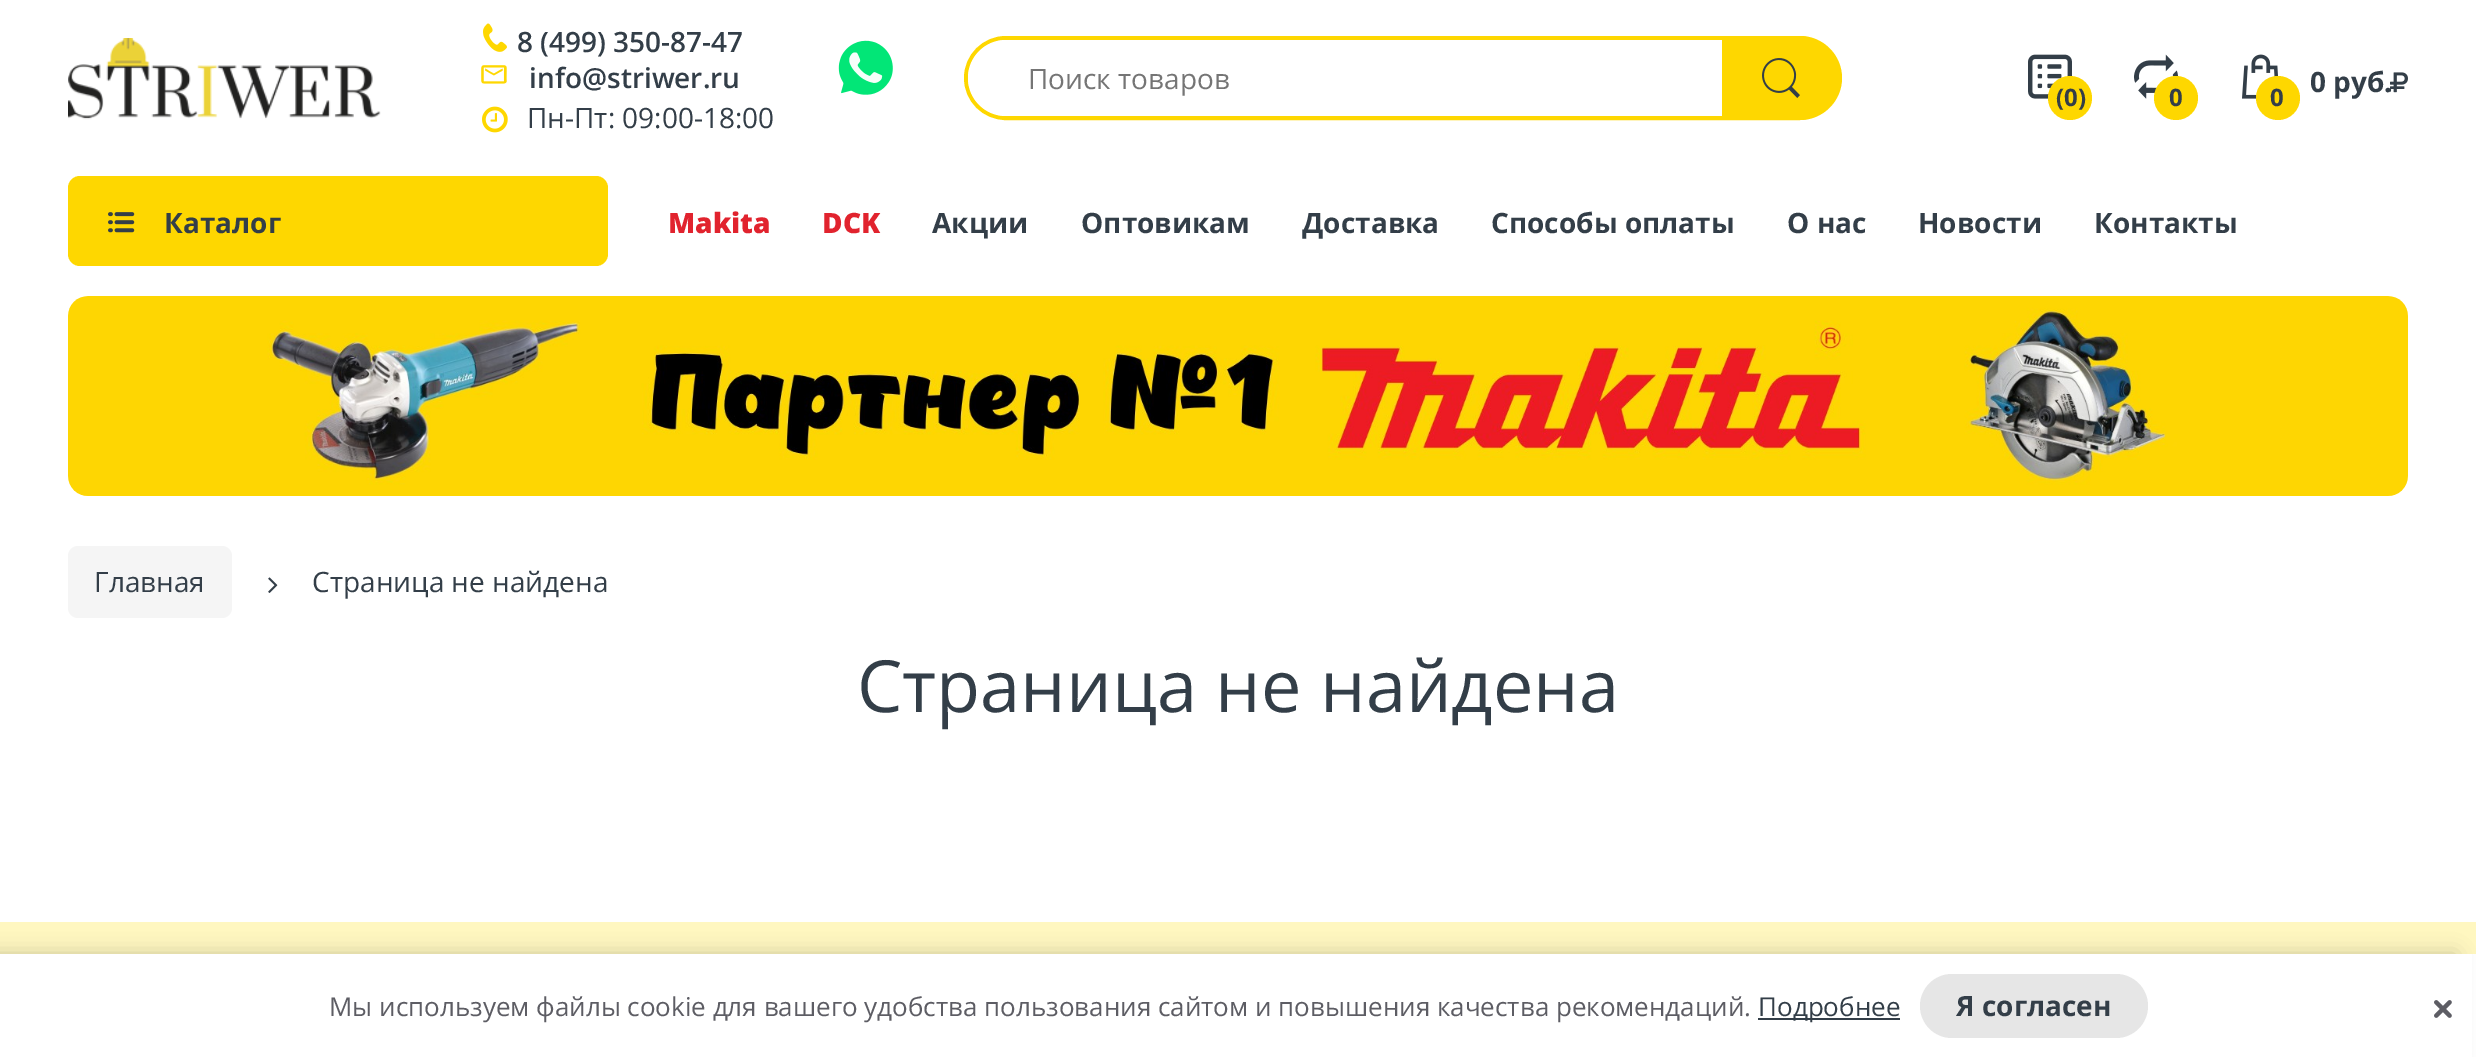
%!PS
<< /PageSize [2476 1057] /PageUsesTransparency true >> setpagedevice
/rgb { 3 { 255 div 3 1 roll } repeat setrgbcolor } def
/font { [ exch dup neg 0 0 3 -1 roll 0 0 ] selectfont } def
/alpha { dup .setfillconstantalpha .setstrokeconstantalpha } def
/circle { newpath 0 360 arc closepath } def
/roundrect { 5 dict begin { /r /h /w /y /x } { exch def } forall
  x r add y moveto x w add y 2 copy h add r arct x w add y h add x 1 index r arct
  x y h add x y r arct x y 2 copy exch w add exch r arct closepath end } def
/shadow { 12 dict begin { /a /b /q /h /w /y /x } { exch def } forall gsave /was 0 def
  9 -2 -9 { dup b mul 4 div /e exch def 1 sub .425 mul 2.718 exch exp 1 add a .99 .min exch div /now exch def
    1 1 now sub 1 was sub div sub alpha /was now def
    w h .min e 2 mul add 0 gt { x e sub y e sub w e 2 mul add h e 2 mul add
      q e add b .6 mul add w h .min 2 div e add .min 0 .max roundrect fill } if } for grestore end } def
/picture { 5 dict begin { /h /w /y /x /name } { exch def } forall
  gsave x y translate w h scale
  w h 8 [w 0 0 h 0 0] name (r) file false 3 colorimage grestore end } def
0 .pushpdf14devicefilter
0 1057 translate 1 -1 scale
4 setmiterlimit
255 255 255 rgb
0 0 2476 1057 rectfill
(img/1.rgb) 68 38 313 82 picture
(img/2.rgb) 483 23 24 29 picture
(img/3.rgb) 838 40 55 55 picture
(img/4.rgb) 481 65 26 19 picture
(img/5.rgb) 482 106 26 27 picture
254 215 0 rgb
4 setlinewidth
966 38 872 80 40 roundrect stroke
255 255 255 rgb
968 40 868 76 38 roundrect fill
254 215 0 rgb
1722 36 moveto 1800 36 lineto 1823 36 1842 55 1842 78 curveto 1842 101 1823 120 1800 120 curveto 1722 120 lineto closepath fill
(img/6.rgb) 1762 58 38 40 picture
(img/7.rgb) 2028 54 44 45 picture
2070 98 22 circle fill
(img/8.rgb) 2134 54 44 45 picture
2176 98 22 circle fill
(img/9.rgb) 2242 54 37 45 picture
2278 98 22 circle fill
68 176 540 90 12 roundrect fill
(img/11.rgb) 108 212 27 21 picture
(img/12.rgb) 68 296 2340 200 picture
245 245 245 rgb
68 546 164 72 10 roundrect fill
(img/13.rgb) 268 577 10 16 picture
255 247 192 rgb
0 922 2476 32 rectfill
0 0 0 rgb
-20 954 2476 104 0 10 0.2 shadow
255 255 255 rgb
0 954 2472 103 rectfill
51 62 72 rgb
1758 1018 142 2 rectfill
230 230 230 rgb
1920 974 228 64 32 roundrect fill
(img/14.rgb) 2434 1000 18 18 picture
/OpenSans-SemiBold 28 font
51 62 72 rgb
517 52 moveto (8 \(499\) 350-87-47) show
529 88 moveto (info@striwer.ru) show
/OpenSans-Regular 28 font
527 128 moveto (Пн-Пт: 09:00-18:00) show
117 117 117 rgb
1028 89 moveto (Поиск товаров) show
/OpenSans-Bold 24 font
51 62 72 rgb
2056 106 moveto (\(0\)) show
2169 106 moveto (0) show
/OpenSans-Bold 28 font
2310 92 moveto (0 руб.) show
(img/10.rgb) 2390 72 18 21 picture
/OpenSans-Bold 24 font
2270 106 moveto (0) show
/OpenSans-Bold 28 font
164 233 moveto (Каталог) show
/OpenSans-ExtraBold 28 font
225 35 46 rgb
668 233 moveto (Makita) show
822 233 moveto (DCK) show
/OpenSans-Bold 28 font
51 62 72 rgb
[
  [(Акции) 932 233]
  [(Оптовикам) 1081 233]
  [(Доставка) 1302 233]
  [(Способы оплаты) 1491 233]
  [(О нас) 1787 233]
  [(Новости) 1918 233]
  [(Контакты) 2094 233]
] { aload pop moveto show } forall
/OpenSans-Regular 28 font
94 592 moveto (Главная) show
312 592 moveto (Страница не найдена) show
/OpenSans-Regular 72 font
857 712 moveto (Страница не найдена) show
/OpenSans-Regular 26 font
93 93 100 rgb
329 1016 moveto (Мы используем файлы cookie для вашего удобства пользования сайтом и повышения качества рекомендаций.) show
51 62 72 rgb
1758 1016 moveto (Подробнее) show
/OpenSans-Bold 28 font
1956 1016 moveto (Я согласен) show
.poppdf14devicefilter showpage
